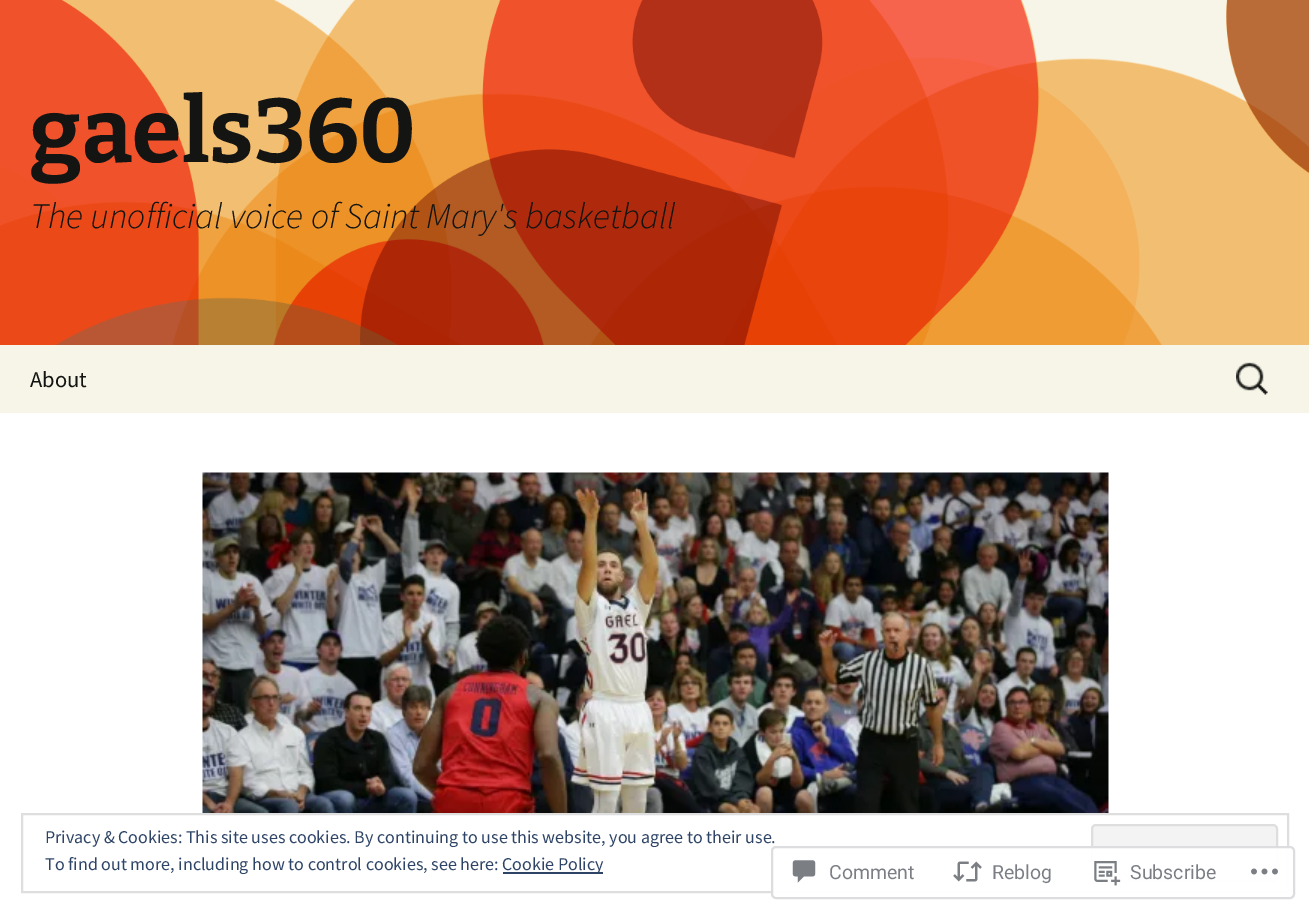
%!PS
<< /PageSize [1309 913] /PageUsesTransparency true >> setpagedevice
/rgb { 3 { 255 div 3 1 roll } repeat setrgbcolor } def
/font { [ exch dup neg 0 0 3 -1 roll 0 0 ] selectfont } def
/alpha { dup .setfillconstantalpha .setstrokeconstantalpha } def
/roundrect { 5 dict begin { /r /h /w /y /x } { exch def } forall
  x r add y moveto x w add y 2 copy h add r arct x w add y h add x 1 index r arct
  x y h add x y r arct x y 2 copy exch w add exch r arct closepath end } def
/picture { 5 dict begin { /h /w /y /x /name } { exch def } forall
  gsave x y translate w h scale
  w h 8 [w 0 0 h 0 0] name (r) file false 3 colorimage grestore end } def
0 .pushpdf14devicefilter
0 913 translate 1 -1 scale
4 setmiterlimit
255 255 255 rgb
0 0 1309 913 rectfill
(img/1.rgb) 0 0 1309 345 picture
247 245 231 rgb
0 345 1309 68 rectfill
(img/2.rgb) 1236 362 32 33 picture
(img/3.rgb) 202 472 907 341 picture
222 222 222 rgb
2 setlinewidth
22 814 1266 78 rectstroke
243 243 243 rgb
1092 825 185 56 4 roundrect gsave fill grestore
222 222 222 rgb
stroke
46 68 103 rgb
503 872 100 2 rectfill
/Bitter-Bold 90 font
20 20 18 rgb
30 162 moveto (gaels360) show
/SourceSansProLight-LightItalic 36 font
30 228 moveto (The unofficial voice of Saint Mary's basketball) show
/SourceSansPro-Regular 22.5 font
30 387 moveto (About) show
/SourceSansPro-Regular 18 font
46 68 103 rgb
[
  [(Privacy & Cookies: This site uses cookies. By continuing to use this website, you agree to their use.) 45 843]
  [(To find out more, including how to control cookies, see here:) 45 870]
  [(Cookie Policy) 502 870]
] { aload pop moveto show } forall
0.98 alpha
255 255 255 rgb
771 846 524 53 5 roundrect fill
220 220 222 rgb
772 847 522 51 4 roundrect stroke
1 alpha
(img/4.rgb) 792 860 24 23 picture
/Roboto-Regular 19.5 font
123 127 133 rgb
829 879 moveto (Comment) show
(img/5.rgb) 953 861 29 21 picture
992 879 moveto (Reblog) show
(img/6.rgb) 1094 861 27 25 picture
1130 879 moveto (Subscribe) show
(img/7.rgb) 1251 868 27 7 picture
.poppdf14devicefilter showpage
